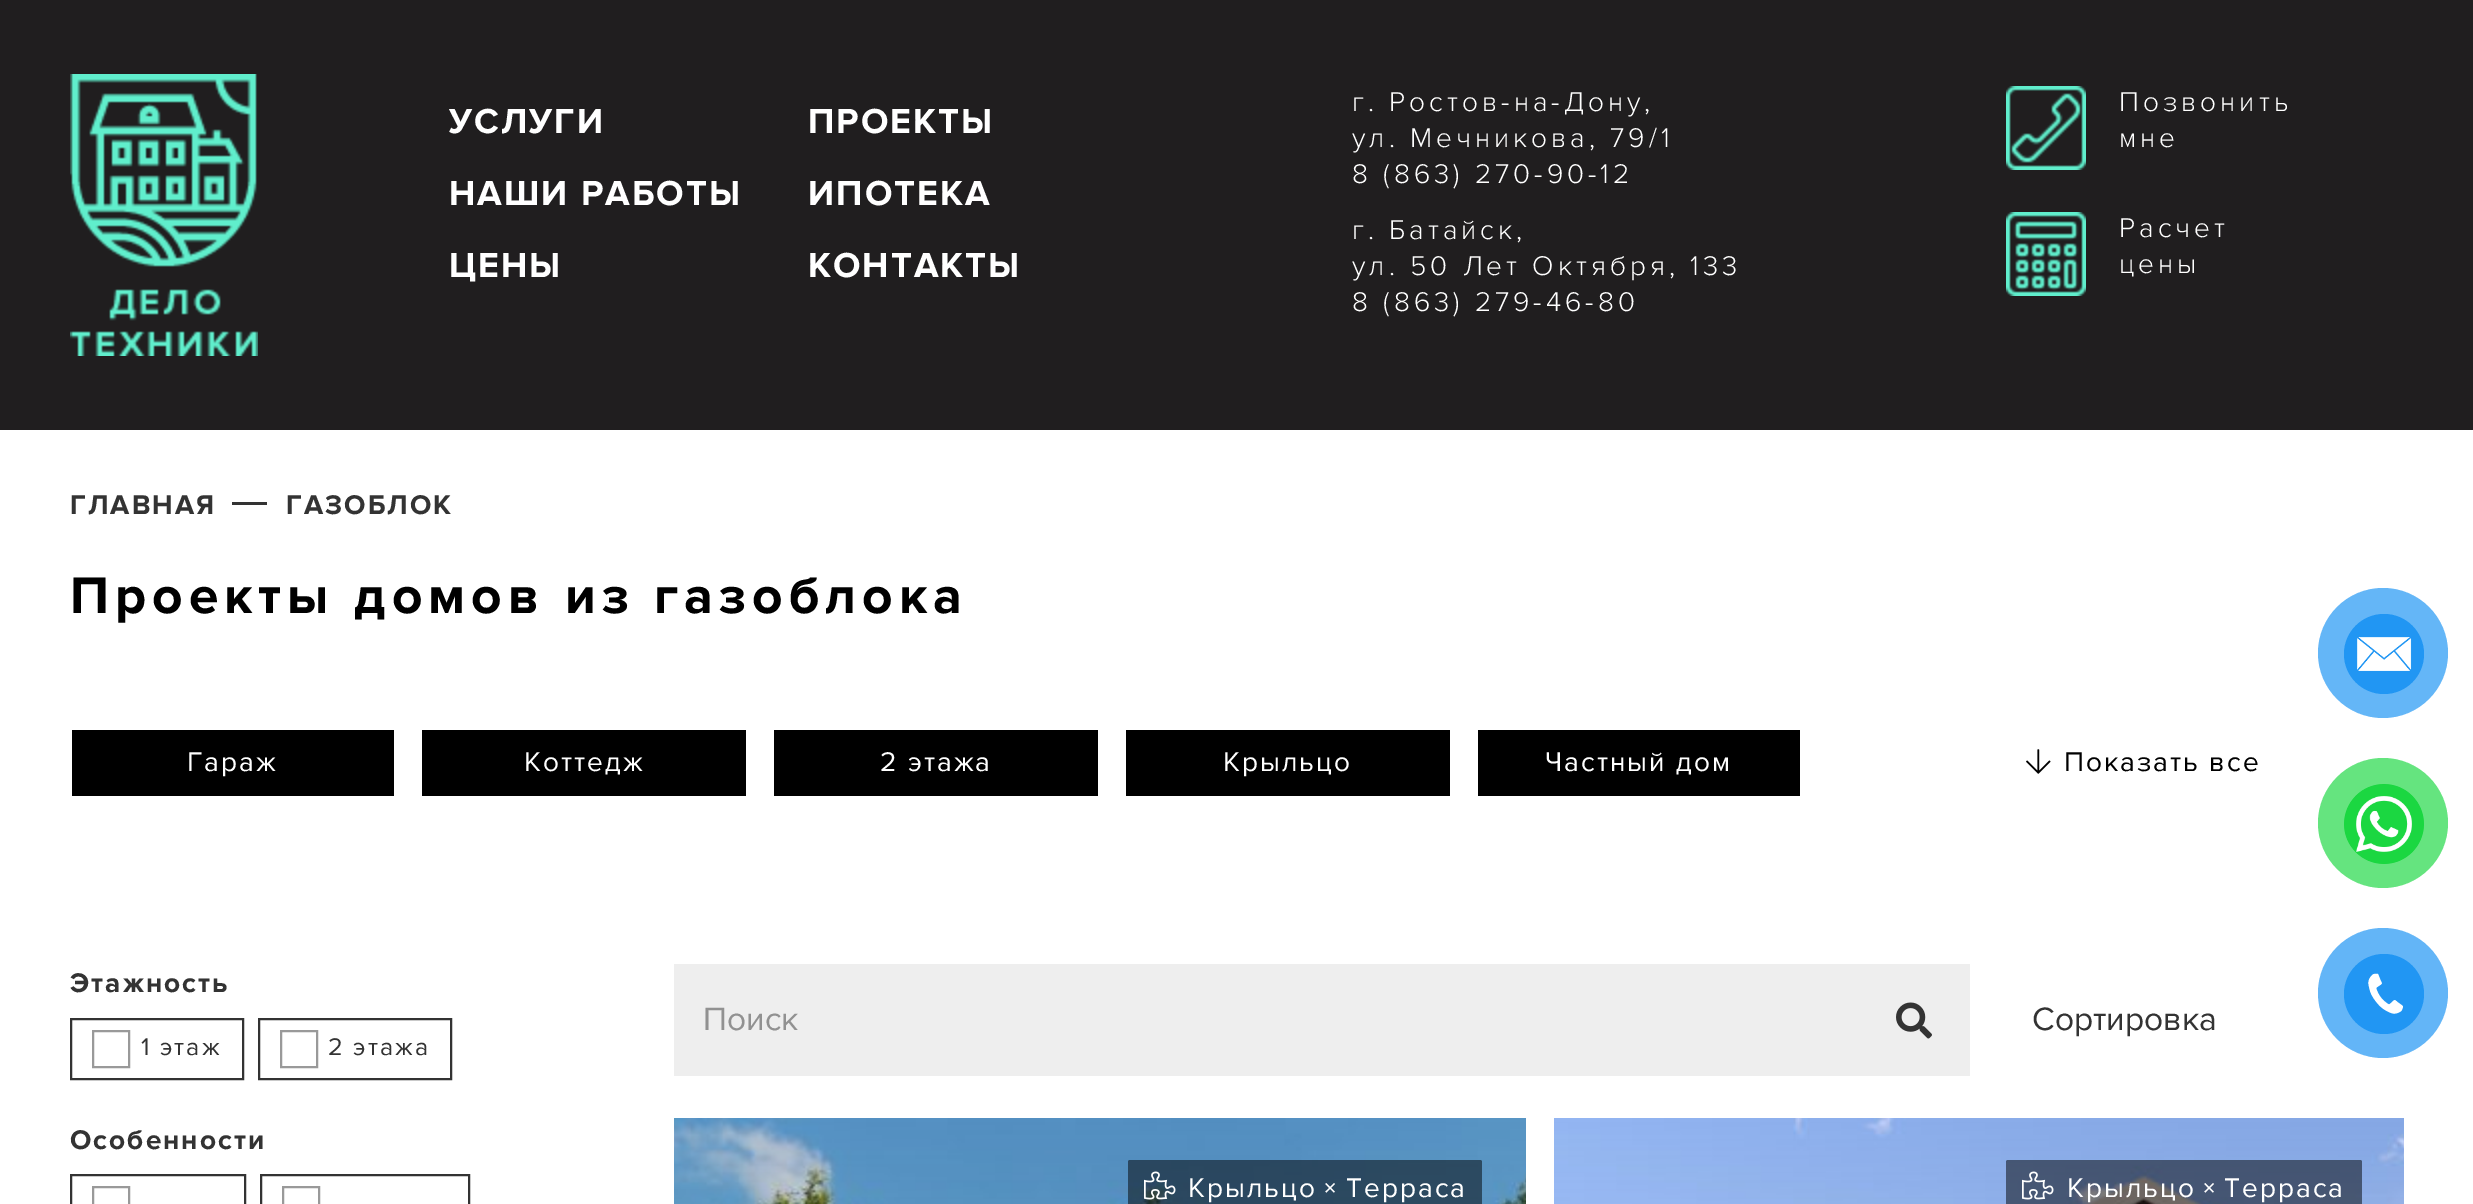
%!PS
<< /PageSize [2473 1204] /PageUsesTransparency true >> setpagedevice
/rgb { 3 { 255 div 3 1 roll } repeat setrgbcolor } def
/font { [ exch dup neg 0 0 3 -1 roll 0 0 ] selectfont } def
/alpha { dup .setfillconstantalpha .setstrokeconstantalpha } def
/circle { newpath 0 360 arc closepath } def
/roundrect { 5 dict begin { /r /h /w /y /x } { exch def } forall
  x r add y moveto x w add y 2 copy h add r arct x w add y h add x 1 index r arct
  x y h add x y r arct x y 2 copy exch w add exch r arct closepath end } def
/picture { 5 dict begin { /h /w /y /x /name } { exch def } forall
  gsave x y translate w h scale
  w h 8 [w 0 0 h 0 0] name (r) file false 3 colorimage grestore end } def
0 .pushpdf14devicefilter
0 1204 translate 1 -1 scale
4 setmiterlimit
255 255 255 rgb
0 0 2473 1204 rectfill
32 30 31 rgb
0 0 2473 430 rectfill
(img/1.rgb) 70 74 188 282 picture
(img/2.rgb) 2006 86 80 84 picture
(img/3.rgb) 2006 212 80 84 picture
[
  [232 502 35 3 51 51 51]
  [72 730 322 66 0 0 0]
  [422 730 324 66 0 0 0]
  [774 730 324 66 0 0 0]
  [1126 730 324 66 0 0 0]
  [1478 730 322 66 0 0 0]
] { aload pop rgb rectfill } forall
(img/4.rgb) 2026 749 25 25 picture
51 51 51 rgb
2 setlinewidth
71 1019 172 60 rectstroke
153 153 153 rgb
93 1031 36 36 rectstroke
51 51 51 rgb
259 1019 192 60 rectstroke
153 153 153 rgb
281 1031 36 36 rectstroke
51 51 51 rgb
71 1175 174 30 rectstroke
153 153 153 rgb
93 1187 36 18 rectstroke
51 51 51 rgb
261 1175 208 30 rectstroke
153 153 153 rgb
283 1187 36 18 rectstroke
238 238 238 rgb
674 964 1296 112 rectfill
(img/5.rgb) 1896 1002 36 37 picture
(img/6.rgb) 674 1118 852 86 picture
0.5 alpha
0 0 0 rgb
1128 1160 354 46 2 roundrect fill
1 alpha
(img/7.rgb) 1144 1171 32 29 picture
(img/8.rgb) 1554 1118 850 86 picture
0.5 alpha
2006 1160 356 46 2 roundrect fill
1 alpha
(img/9.rgb) 2022 1171 32 29 picture
100 182 247 rgb
2383 653 65 circle fill
33 150 243 rgb
2384 654 40 circle fill
(img/10.rgb) 2357 637 55 34 picture
101 228 127 rgb
2383 823 65 circle fill
28 215 65 rgb
2384 824 40 circle fill
(img/11.rgb) 2344 784 80 80 picture
0.7 alpha
33 150 243 rgb
2383 993 65 circle fill
1 alpha
2384 994 40 circle fill
(img/12.rgb) 2368 973 35 41 picture
/ProximaNova-Bold 36 font
255 255 255 rgb
449 133 moveto 2 0 (УСЛУГИ) ashow
808 133 moveto 2 0 (ПРОЕКТЫ) ashow
449 205 moveto 2 0 (НАШИ РАБОТЫ) ashow
808 205 moveto 2 0 (ИПОТЕКА) ashow
449 277 moveto 2 0 (ЦЕНЫ) ashow
808 277 moveto 2 0 (КОНТАКТЫ) ashow
/ProximaNova-Light 28 font
1352 111 moveto 4 0 (г. Ростов-на-Дону,) ashow
1352 147 moveto 4 0 (ул. Мечникова, 79/1) ashow
1352 183 moveto 4 0 (8 \(863\) 270-90-12) ashow
1352 239 moveto 4 0 (г. Батайск,) ashow
1352 275 moveto 4 0 (ул. 50 Лет Октября, 133) ashow
1352 311 moveto 4 0 (8 \(863\) 279-46-80) ashow
2119 111 moveto 4 0 (Позвонить) ashow
2119 147 moveto 4 0 (мне) ashow
2119 237 moveto 4 0 (Расчет) ashow
2119 273 moveto 4 0 (цены) ashow
/ProximaNova-Bold 28 font
51 51 51 rgb
70 514 moveto 2 0 (ГЛАВНАЯ) ashow
286 514 moveto 2 0 (ГАЗОБЛОК) ashow
/ProximaNova-Bold 53.25 font
0 0 0 rgb
70 613 moveto 6 0 (Проекты домов из газоблока) ashow
/ProximaNova-Regular 28 font
255 255 255 rgb
187 771 moveto 2 0 (Гараж) ashow
524 771 moveto 2 0 (Коттедж) ashow
880 771 moveto 2 0 (2 этажа) ashow
1223 771 moveto 2 0 (Крыльцо) ashow
1545 771 moveto 2 0 (Частный дом) ashow
0 0 0 rgb
2064 771 moveto 2 0 (Показать все) ashow
/ProximaNova-Bold 28 font
51 51 51 rgb
70 992 moveto 2 0 (Этажность) ashow
/ProximaNova-Regular 25 font
141 1055 moveto 2 0 (1 этаж) ashow
328 1055 moveto 2 0 (2 этажа) ashow
/ProximaNova-Bold 28 font
70 1149 moveto 2 0 (Особенности) ashow
/ProximaNova-Regular 33.5 font
145 145 145 rgb
703 1030 moveto (Поиск) show
51 51 51 rgb
2032 1030 moveto (Сортировка) show
/ProximaNova-Regular 28 font
255 255 255 rgb
1188 1197 moveto 2 0 (Крыльцо) ashow
/DejaVuSans-Regular 17 font
1323 1194 moveto 2 0 (✕) ashow
/ProximaNova-Regular 28 font
1346 1197 moveto 2 0 (Терраса) ashow
2067 1197 moveto 2 0 (Крыльцо) ashow
/DejaVuSans-Regular 17 font
2202 1194 moveto 2 0 (✕) ashow
/ProximaNova-Regular 28 font
2224 1197 moveto 2 0 (Терраса) ashow
.poppdf14devicefilter showpage
